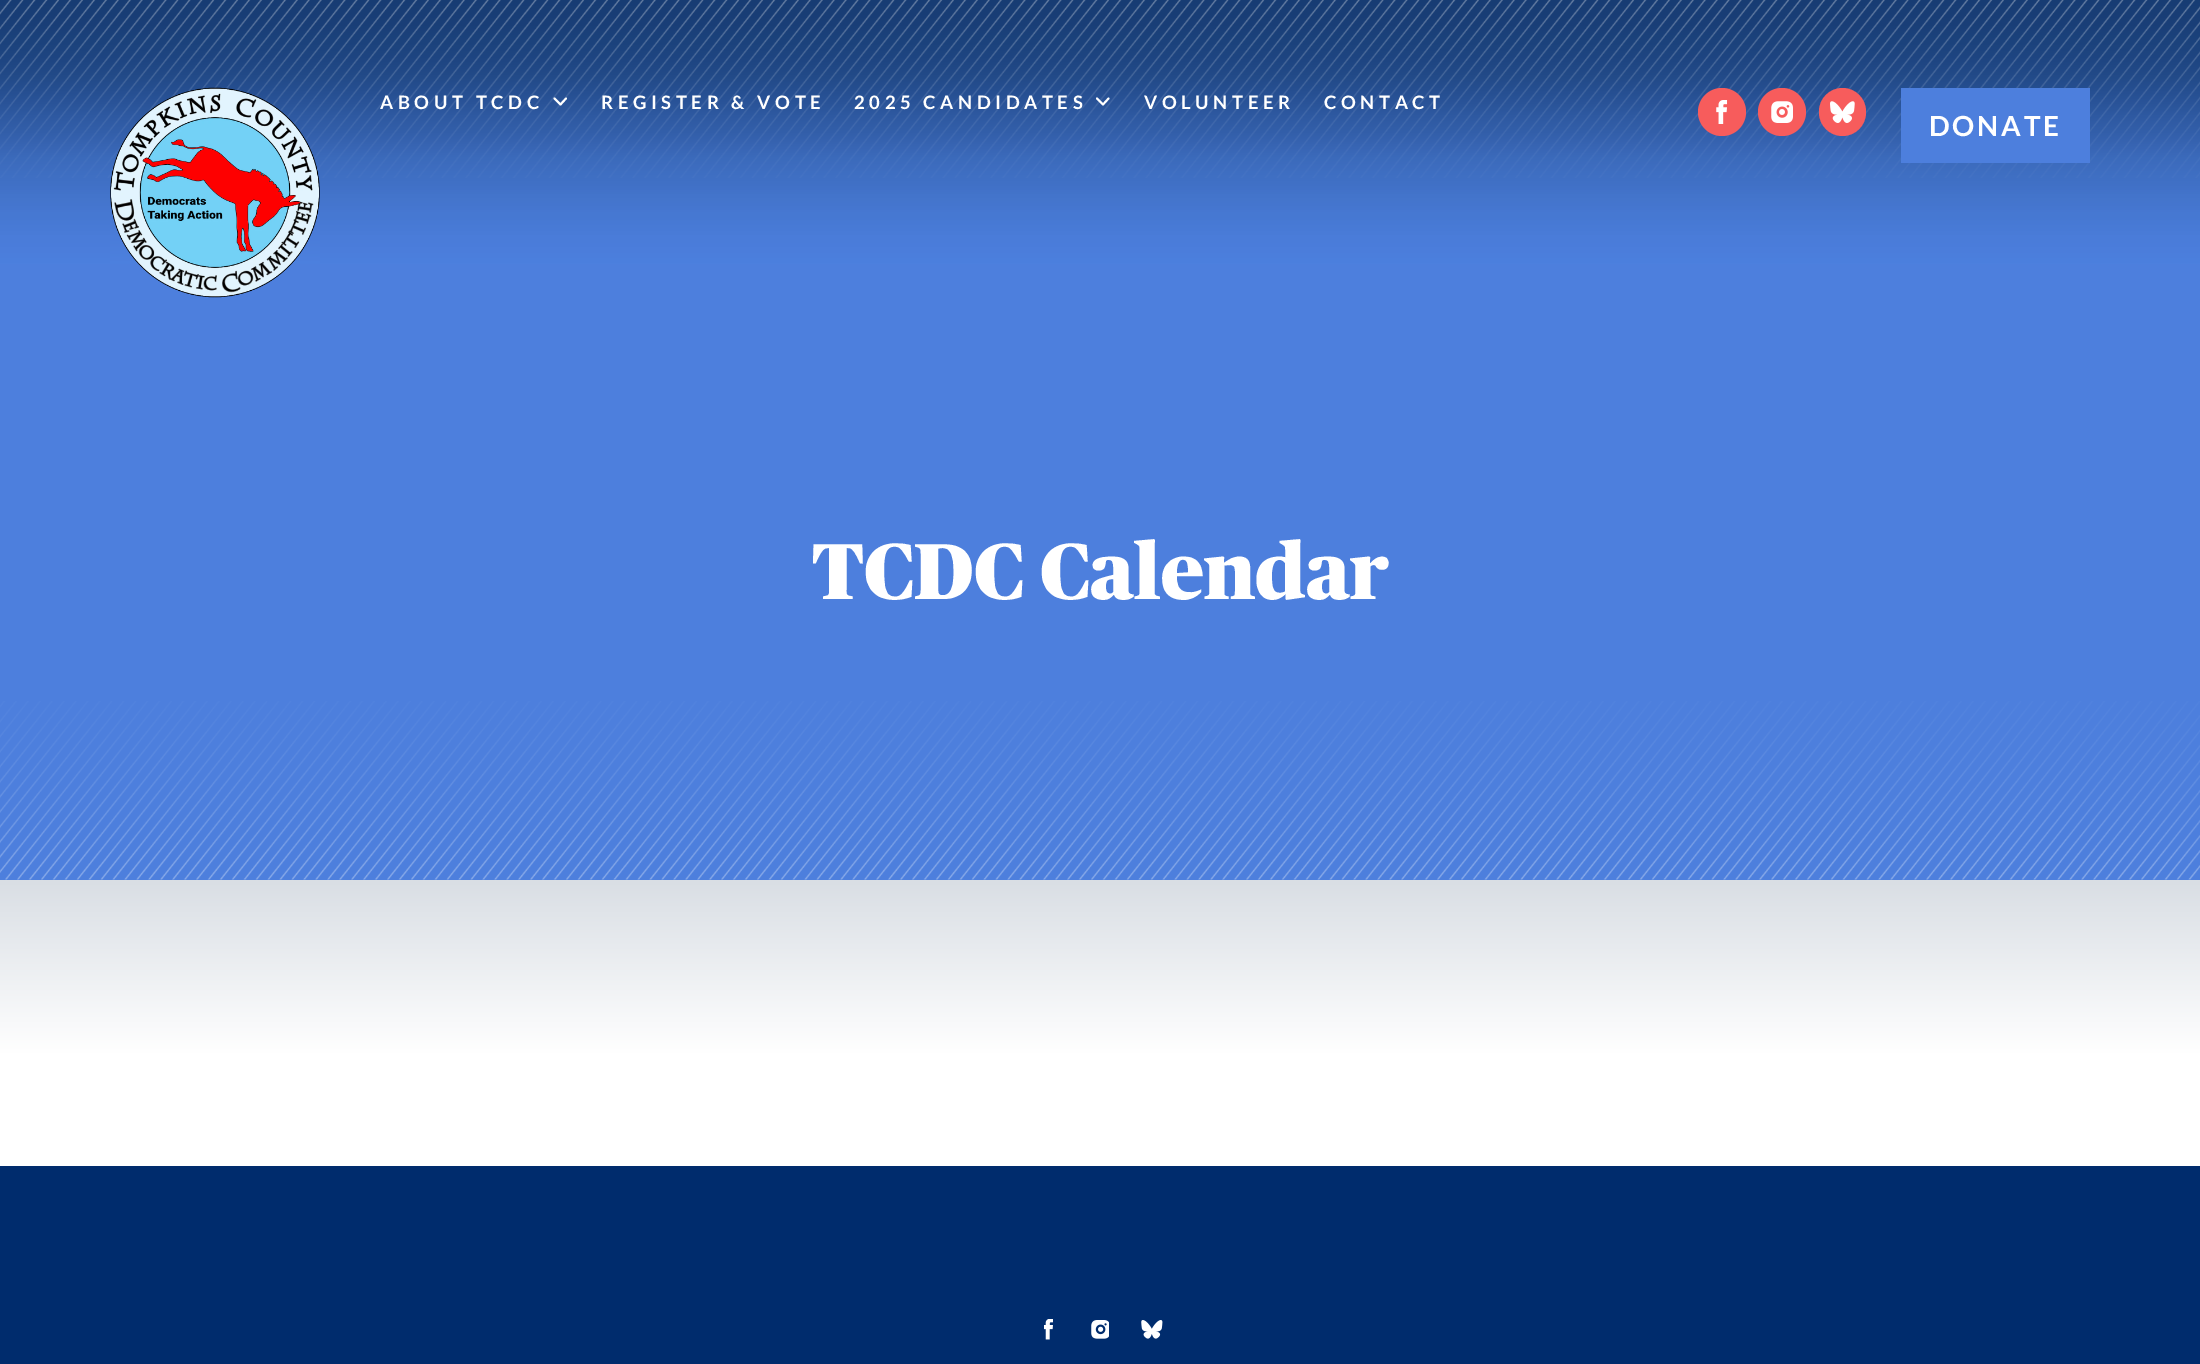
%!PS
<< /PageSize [2200 1364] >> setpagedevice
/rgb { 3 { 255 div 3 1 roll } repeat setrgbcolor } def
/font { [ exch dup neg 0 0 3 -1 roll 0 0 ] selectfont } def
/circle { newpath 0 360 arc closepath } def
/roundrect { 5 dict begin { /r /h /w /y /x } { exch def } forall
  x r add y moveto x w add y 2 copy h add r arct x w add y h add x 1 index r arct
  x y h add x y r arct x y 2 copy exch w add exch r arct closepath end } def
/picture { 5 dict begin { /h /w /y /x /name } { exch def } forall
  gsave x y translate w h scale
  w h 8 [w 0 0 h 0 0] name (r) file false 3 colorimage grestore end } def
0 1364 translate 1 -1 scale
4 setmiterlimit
0 44 109 rgb
0 0 2200 1364 rectfill
77 127 221 rgb
0 264 2200 616 rectfill
gsave 0 0 moveto 2200 0 lineto 2200 264 lineto 0 264 lineto closepath clip newpath
<< /ShadingType 2 /ColorSpace /DeviceRGB /Coords [1100 0 1100 264] /Extend [true true] /Function << /FunctionType 3 /Domain [0 1] /Functions [<< /FunctionType 2 /Domain [0 1] /C0 [0.09 0.235 0.451] /C1 [0.098 0.243 0.467] /N 1 >> << /FunctionType 2 /Domain [0 1] /C0 [0.098 0.243 0.467] /C1 [0.106 0.259 0.486] /N 1 >> << /FunctionType 2 /Domain [0 1] /C0 [0.106 0.259 0.486] /C1 [0.118 0.271 0.51] /N 1 >> << /FunctionType 2 /Domain [0 1] /C0 [0.118 0.271 0.51] /C1 [0.133 0.29 0.533] /N 1 >> << /FunctionType 2 /Domain [0 1] /C0 [0.133 0.29 0.533] /C1 [0.145 0.306 0.565] /N 1 >> << /FunctionType 2 /Domain [0 1] /C0 [0.145 0.306 0.565] /C1 [0.161 0.325 0.596] /N 1 >> << /FunctionType 2 /Domain [0 1] /C0 [0.161 0.325 0.596] /C1 [0.18 0.349 0.631] /N 1 >> << /FunctionType 2 /Domain [0 1] /C0 [0.18 0.349 0.631] /C1 [0.196 0.369 0.663] /N 1 >> << /FunctionType 2 /Domain [0 1] /C0 [0.196 0.369 0.663] /C1 [0.216 0.392 0.698] /N 1 >> << /FunctionType 2 /Domain [0 1] /C0 [0.216 0.392 0.698] /C1 [0.231 0.416 0.733] /N 1 >> << /FunctionType 2 /Domain [0 1] /C0 [0.231 0.416 0.733] /C1 [0.247 0.435 0.765] /N 1 >> << /FunctionType 2 /Domain [0 1] /C0 [0.247 0.435 0.765] /C1 [0.263 0.455 0.796] /N 1 >> << /FunctionType 2 /Domain [0 1] /C0 [0.263 0.455 0.796] /C1 [0.275 0.471 0.824] /N 1 >> << /FunctionType 2 /Domain [0 1] /C0 [0.275 0.471 0.824] /C1 [0.29 0.486 0.851] /N 1 >> << /FunctionType 2 /Domain [0 1] /C0 [0.29 0.486 0.851] /C1 [0.298 0.502 0.871] /N 1 >>] /Bounds [0.09 0.16 0.23 0.29 0.34 0.39 0.44 0.5 0.55 0.6 0.67 0.74 0.81 0.9] /Encode [0 1 0 1 0 1 0 1 0 1 0 1 0 1 0 1 0 1 0 1 0 1 0 1 0 1 0 1 0 1] >> >> shfill grestore
(img/1.rgb) 0 0 2200 178 picture
(img/2.rgb) 110 87 210 211 picture
255 255 255 rgb
1.9 setlinewidth
1 setlinecap
1 setlinejoin
554.5 98.5 moveto 560.5 104.5 lineto 566 98.5 lineto stroke
1097 98.5 moveto 1103 104.5 lineto 1108.5 98.5 lineto stroke
247 92 92 rgb
1722 112 24 circle fill
(img/3.rgb) 1716 100 12 24 picture
1782 112 24 circle fill
(img/4.rgb) 1771 101 22 22 picture
1819 88 47 48 23.5 roundrect fill
(img/5.rgb) 1830 101 25 22 picture
77 127 221 rgb
1901 88 189 75 rectfill
(img/6.rgb) 0 701 2200 179 picture
255 255 255 rgb
0 1054 2200 112 rectfill
gsave 0 880 moveto 2200 880 lineto 2200 1054 lineto 0 1054 lineto closepath clip newpath
<< /ShadingType 2 /ColorSpace /DeviceRGB /Coords [1100 880 1100 1054] /Extend [true true] /Function << /FunctionType 2 /Domain [0 1] /C0 [0.851 0.871 0.894] /C1 [1 1 1] /N 1 >> >> shfill grestore
(img/7.rgb) 1044 1319 9 21 picture
(img/8.rgb) 1091 1320 18 19 picture
(img/9.rgb) 1141 1320 22 19 picture
/Lato-Bold 18.5 font
380 109 moveto 4.6 0 (ABOUT TCDC) ashow
601 109 moveto 4.6 0 (REGISTER & VOTE) ashow
854 109 moveto 4.6 0 (2025 CANDIDATES) ashow
1144 109 moveto 4.6 0 (VOLUNTEER) ashow
1324 109 moveto 4.6 0 (CONTACT) ashow
/Lato-Bold 27.75 font
1929 136 moveto 2.75 0 (DONATE) ashow
/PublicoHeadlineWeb-Black 79.25 font
812 599 moveto (TCDC Calendar) show
showpage
